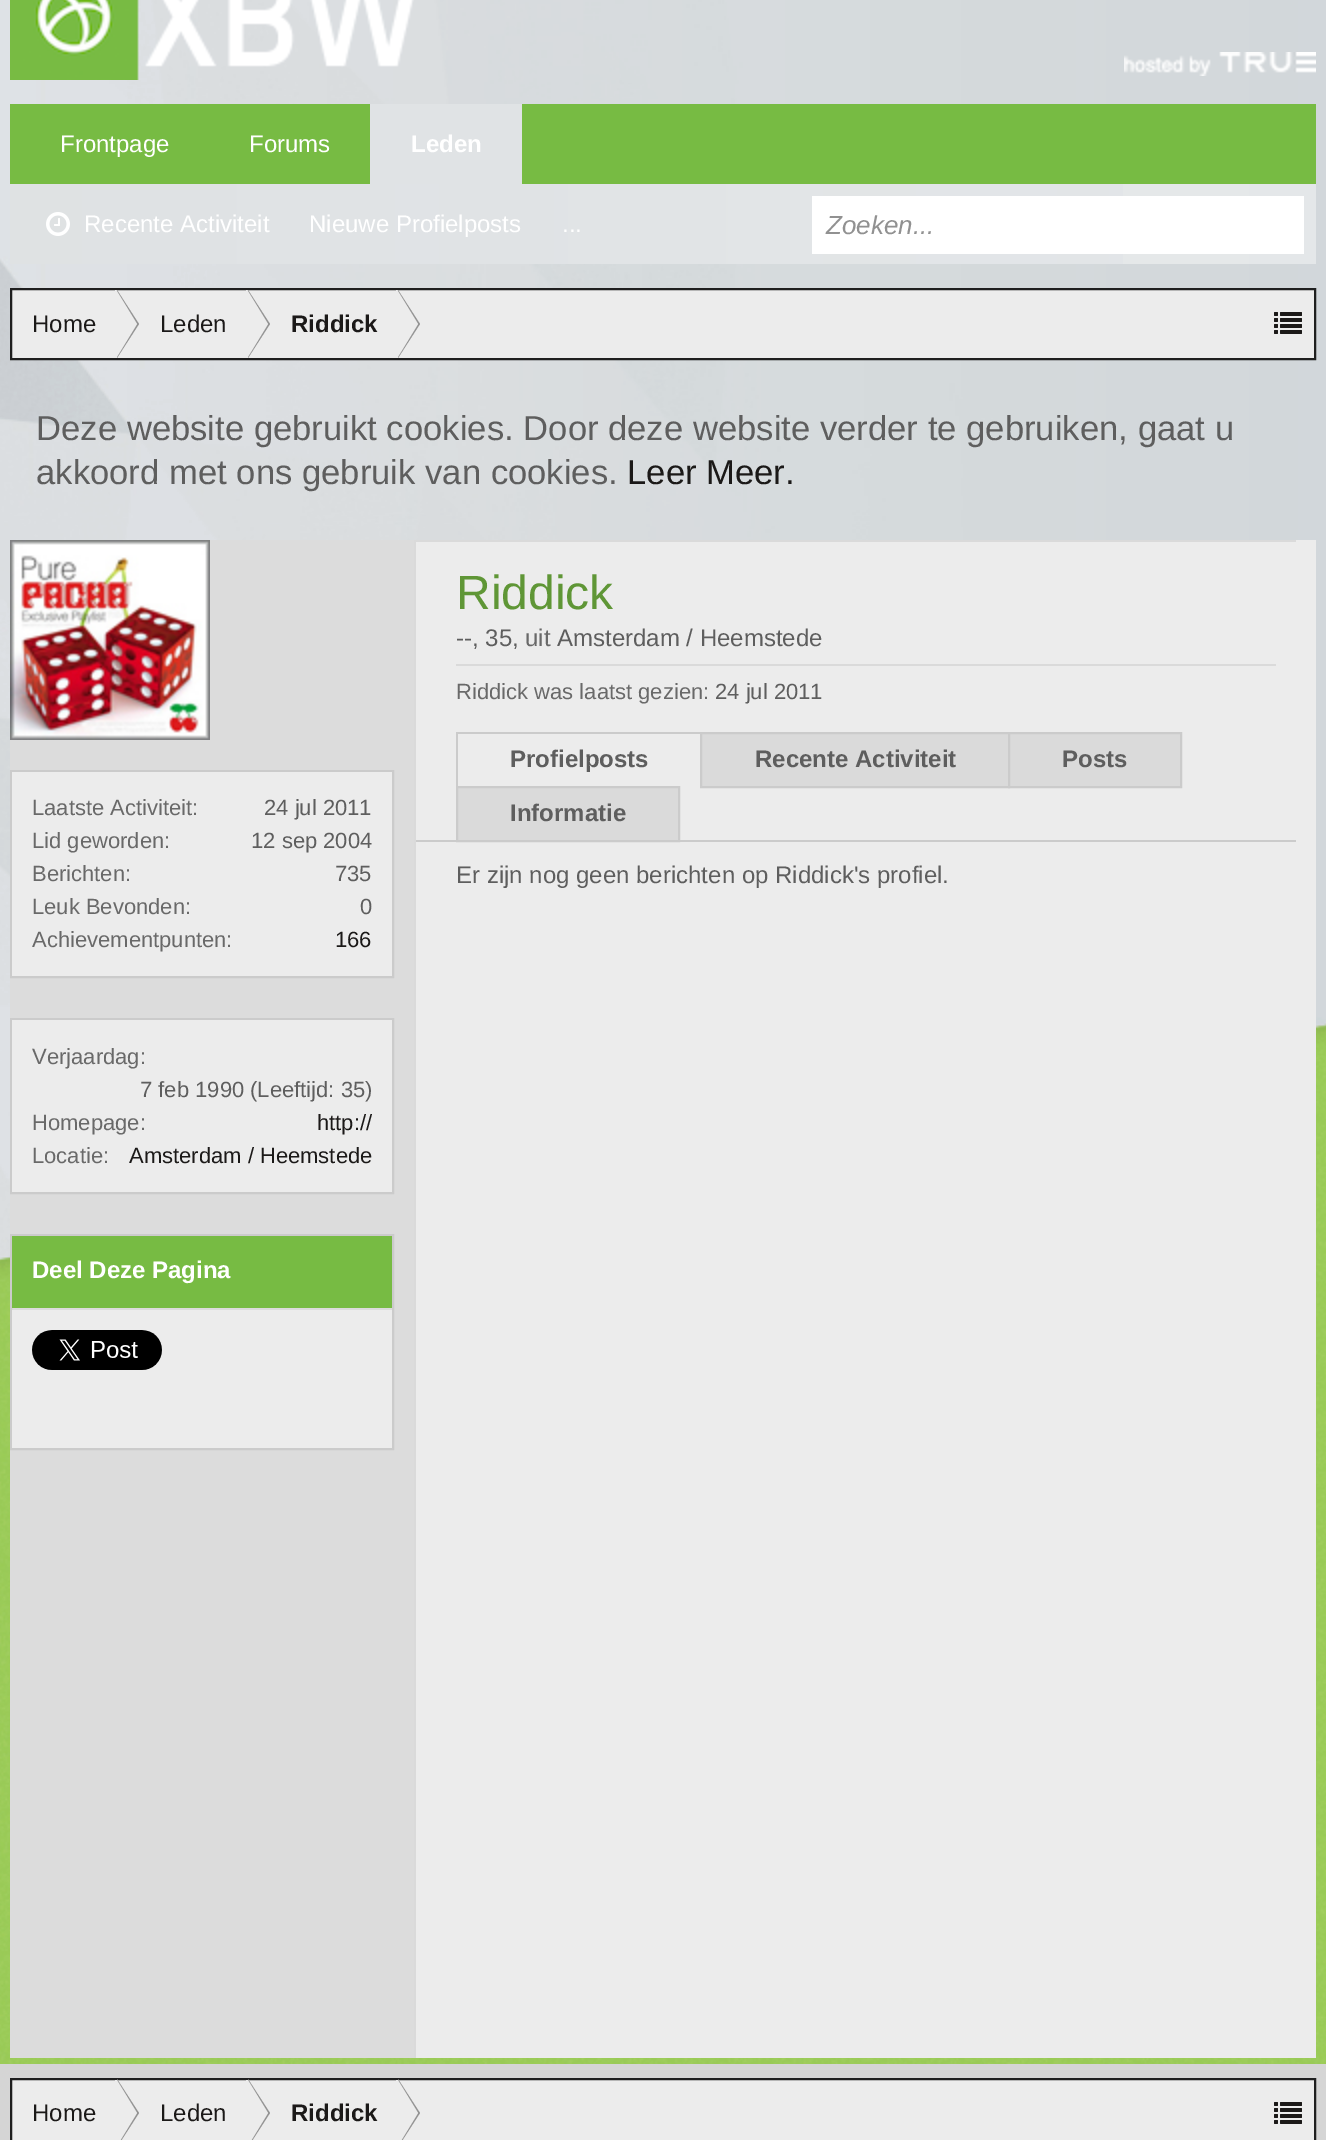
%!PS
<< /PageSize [1326 2140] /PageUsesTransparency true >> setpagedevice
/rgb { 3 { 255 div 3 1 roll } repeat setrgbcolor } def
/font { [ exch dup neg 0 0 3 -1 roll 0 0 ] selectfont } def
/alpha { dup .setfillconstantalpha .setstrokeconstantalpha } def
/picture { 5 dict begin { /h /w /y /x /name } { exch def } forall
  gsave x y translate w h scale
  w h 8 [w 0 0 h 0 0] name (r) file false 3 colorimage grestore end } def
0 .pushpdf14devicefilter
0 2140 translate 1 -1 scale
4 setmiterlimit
213 213 213 rgb
0 0 1326 2140 rectfill
(img/1.rgb) 0 0 1326 2064 picture
(img/2.rgb) 10 0 404 80 picture
(img/3.rgb) 1124 52 192 24 picture
(img/4.rgb) 10 184 1113 80 picture
[
  [10 104 1306 80 119 187 67]
  [370 104 152 80 224 227 229]
] { aload pop rgb rectfill } forall
0.4 alpha
[
  [10 184 1306 80 255 255 255]
] { aload pop rgb rectfill } forall
1 alpha
(img/5.rgb) 46 212 24 24 picture
812 196 492 58 rectfill
236 236 236 rgb
11 289 moveto 1315 289 lineto 1315 359 lineto 11 359 lineto closepath gsave fill grestore
31 31 31 rgb
2 setlinewidth
stroke
147 147 147 rgb
117 358 moveto 117 290 lineto 139 324 lineto closepath fill
gsave
12 290 1302 68 rectclip
236 236 236 rgb
115 360 moveto 115 288 lineto 137 324 lineto closepath fill
grestore
248 358 moveto 248 290 lineto 270 324 lineto closepath fill
gsave
12 290 1302 68 rectclip
236 236 236 rgb
246 360 moveto 246 288 lineto 268 324 lineto closepath fill
grestore
398 358 moveto 398 290 lineto 420 324 lineto closepath fill
gsave
12 290 1302 68 rectclip
236 236 236 rgb
396 360 moveto 396 288 lineto 418 324 lineto closepath fill
grestore
(img/6.rgb) 1274 312 28 22 picture
[
  [10 540 404 1518 220 220 220]
  [416 540 900 1518 236 236 236]
  [414 540 2 1518 218 218 218]
  [416 540 880 2 218 218 218]
  [456 664 820 2 218 218 218]
  [416 840 880 2 203 203 203]
  [456 732 246 2 203 203 203]
  [456 732 2 56 203 203 203]
] { aload pop rgb rectfill } forall
218 218 218 rgb
701 733 moveto 1009 733 lineto 1009 787 lineto 701 787 lineto closepath gsave fill grestore
203 203 203 rgb
stroke
218 218 218 rgb
1009 733 moveto 1181 733 lineto 1181 787 lineto 1009 787 lineto closepath gsave fill grestore
203 203 203 rgb
stroke
218 218 218 rgb
457 787 moveto 679 787 lineto 679 841 lineto 457 841 lineto closepath gsave fill grestore
203 203 203 rgb
stroke
(img/7.rgb) 10 540 200 200 picture
11 771 382 206 rectstroke
236 236 236 rgb
12 772 380 204 rectfill
203 203 203 rgb
11 1019 382 174 rectstroke
236 236 236 rgb
12 1020 380 172 rectfill
203 203 203 rgb
11 1235 382 214 rectstroke
236 236 236 rgb
12 1310 380 138 rectfill
119 187 67 rgb
12 1236 380 72 rectfill
(img/8.rgb) 32 1330 130 40 picture
236 236 236 rgb
11 2079 moveto 1315 2079 lineto 1315 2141 lineto 11 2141 lineto closepath gsave fill grestore
31 31 31 rgb
stroke
147 147 147 rgb
117 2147 moveto 117 2079 lineto 139 2113 lineto closepath fill
gsave
12 2080 1302 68 rectclip
236 236 236 rgb
115 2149 moveto 115 2077 lineto 137 2113 lineto closepath fill
grestore
248 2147 moveto 248 2079 lineto 270 2113 lineto closepath fill
gsave
12 2080 1302 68 rectclip
236 236 236 rgb
246 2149 moveto 246 2077 lineto 268 2113 lineto closepath fill
grestore
398 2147 moveto 398 2079 lineto 420 2113 lineto closepath fill
gsave
12 2080 1302 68 rectclip
236 236 236 rgb
396 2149 moveto 396 2077 lineto 418 2113 lineto closepath fill
grestore
(img/6.rgb) 1274 2102 28 22 picture
/LiberationSans-Bold 24 font
255 255 255 rgb
411 152 moveto (Leden) show
/LiberationSans-Regular 24 font
[
  [(Recente Activiteit) 84 232]
  [(Nieuwe Profielposts) 309 232]
  [(...) 562 232]
  [(Frontpage) 60 152]
  [(Forums) 249 152]
] { aload pop moveto show } forall
/LiberationSans-Italic 26 font
145 145 145 rgb
826 234 moveto (Zoeken...) show
/LiberationSans-Regular 24 font
27 25 24 rgb
32 332 moveto (Home) show
160 332 moveto (Leden) show
/LiberationSans-Bold 24 font
291 332 moveto (Riddick) show
/LiberationSans-Regular 34.65 font
94 94 94 rgb
36 440 moveto (Deze website gebruikt cookies. Door deze website verder te gebruiken, gaat u) show
36 484 moveto (akkoord met ons gebruik van cookies.) show
27 25 24 rgb
627 484 moveto (Leer Meer.) show
/LiberationSans-Regular 48 font
95 150 54 rgb
456 609 moveto (Riddick) show
/LiberationSans-Regular 24 font
94 94 94 rgb
456 646 moveto (--, 35,) show
105 105 105 rgb
525 646 moveto (uit) show
94 94 94 rgb
557 646 moveto (Amsterdam / Heemstede) show
/LiberationSans-Regular 22 font
105 105 105 rgb
456 699 moveto (Riddick was laatst gezien:) show
94 94 94 rgb
715 699 moveto (24 jul 2011) show
/LiberationSans-Bold 24 font
[
  [(Profielposts) 510 767]
  [(Recente Activiteit) 755 767]
  [(Posts) 1062 767]
  [(Informatie) 510 821]
] { aload pop moveto show } forall
/LiberationSans-Regular 24 font
456 883 moveto (Er zijn nog geen berichten op Riddick's profiel.) show
/LiberationSans-Regular 22 font
105 105 105 rgb
32 815 moveto (Laatste Activiteit:) show
94 94 94 rgb
264 815 moveto (24 jul 2011) show
105 105 105 rgb
32 848 moveto (Lid geworden:) show
94 94 94 rgb
251 848 moveto (12 sep 2004) show
105 105 105 rgb
32 881 moveto (Berichten:) show
94 94 94 rgb
335 881 moveto (735) show
105 105 105 rgb
32 914 moveto (Leuk Bevonden:) show
94 94 94 rgb
360 914 moveto (0) show
105 105 105 rgb
32 947 moveto (Achievementpunten:) show
27 25 24 rgb
335 947 moveto (166) show
105 105 105 rgb
32 1064 moveto (Verjaardag:) show
94 94 94 rgb
140 1097 moveto (7 feb 1990 \(Leeftijd: 35\)) show
105 105 105 rgb
32 1130 moveto (Homepage:) show
27 25 24 rgb
317 1130 moveto (http://) show
105 105 105 rgb
32 1163 moveto (Locatie:) show
27 25 24 rgb
129 1163 moveto (Amsterdam / Heemstede) show
/LiberationSans-Bold 24 font
255 255 255 rgb
32 1278 moveto (Deel Deze Pagina) show
/LiberationSans-Regular 24 font
27 25 24 rgb
32 2121 moveto (Home) show
160 2121 moveto (Leden) show
/LiberationSans-Bold 24 font
291 2121 moveto (Riddick) show
.poppdf14devicefilter showpage
